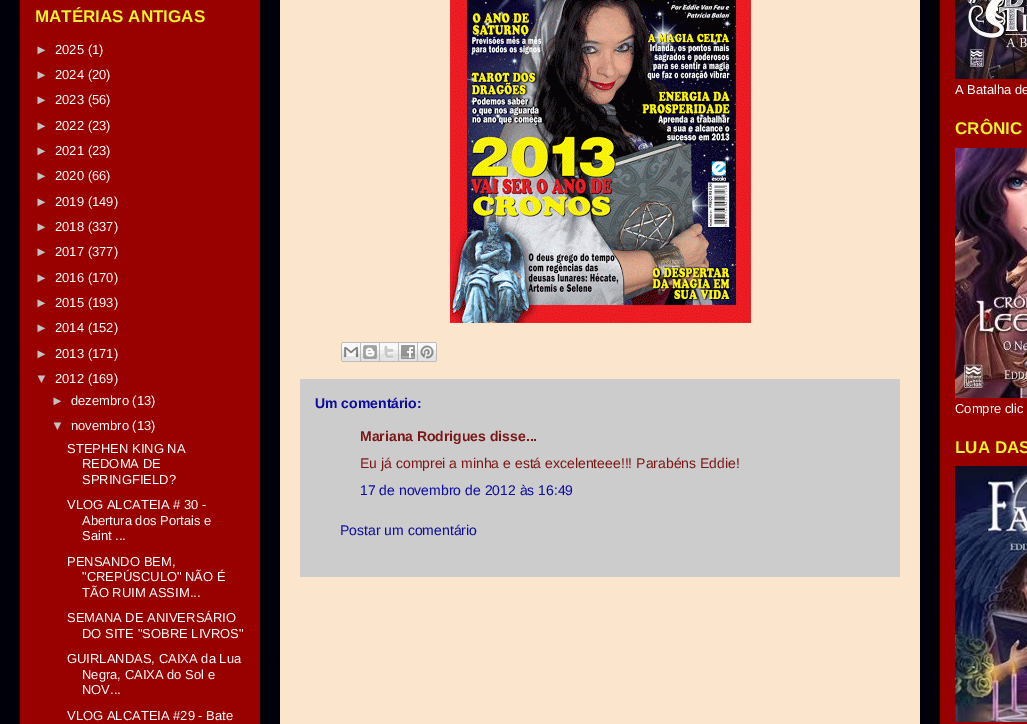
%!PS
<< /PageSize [1027 724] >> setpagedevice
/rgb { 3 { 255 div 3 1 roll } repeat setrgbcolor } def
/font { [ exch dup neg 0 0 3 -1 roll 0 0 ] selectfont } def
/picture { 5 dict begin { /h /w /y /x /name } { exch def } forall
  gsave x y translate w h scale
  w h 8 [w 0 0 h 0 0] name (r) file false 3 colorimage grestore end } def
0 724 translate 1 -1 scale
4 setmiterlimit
0 0 11 rgb
0 0 1027 724 rectfill
[
  [20 0 240 724 153 0 0]
  [940 0 87 724 153 0 0]
  [280 0 640 724 252 229 205]
] { aload pop rgb rectfill } forall
(img/1.rgb) 450 0 301 323 picture
(img/2.rgb) 341 342 20 20 picture
(img/3.rgb) 361 342 19 20 picture
(img/4.rgb) 380 342 19 20 picture
(img/5.rgb) 399 342 19 20 picture
(img/6.rgb) 418 342 19 20 picture
204 204 204 rgb
300 379 600 198 rectfill
(img/7.rgb) 955 0 72 79 picture
(img/8.rgb) 955 148 72 250 picture
(img/9.rgb) 955 466 72 256 picture
/LiberationSans-Bold 17 font
242 242 47 rgb
35 22 moveto (MATÉRIAS ANTIGAS) show
/LiberationSans-Regular 13 font
194 194 194 rgb
35 54 moveto (►) show
255 255 255 rgb
55 54 moveto (2025 \(1\)) show
194 194 194 rgb
35 79 moveto (►) show
255 255 255 rgb
55 79 moveto (2024 \(20\)) show
194 194 194 rgb
35 104 moveto (►) show
255 255 255 rgb
55 104 moveto (2023 \(56\)) show
194 194 194 rgb
35 130 moveto (►) show
255 255 255 rgb
55 130 moveto (2022 \(23\)) show
194 194 194 rgb
35 155 moveto (►) show
255 255 255 rgb
55 155 moveto (2021 \(23\)) show
194 194 194 rgb
35 180 moveto (►) show
255 255 255 rgb
55 180 moveto (2020 \(66\)) show
194 194 194 rgb
35 206 moveto (►) show
255 255 255 rgb
55 206 moveto (2019 \(149\)) show
194 194 194 rgb
35 231 moveto (►) show
255 255 255 rgb
55 231 moveto (2018 \(337\)) show
194 194 194 rgb
35 256 moveto (►) show
255 255 255 rgb
55 256 moveto (2017 \(377\)) show
194 194 194 rgb
35 282 moveto (►) show
255 255 255 rgb
55 282 moveto (2016 \(170\)) show
194 194 194 rgb
35 307 moveto (►) show
255 255 255 rgb
55 307 moveto (2015 \(193\)) show
194 194 194 rgb
35 332 moveto (►) show
255 255 255 rgb
55 332 moveto (2014 \(152\)) show
194 194 194 rgb
35 358 moveto (►) show
255 255 255 rgb
55 358 moveto (2013 \(171\)) show
194 194 194 rgb
35 383 moveto (▼) show
255 255 255 rgb
55 383 moveto (2012 \(169\)) show
194 194 194 rgb
51 405 moveto (►) show
255 255 255 rgb
71 405 moveto (dezembro \(13\)) show
194 194 194 rgb
51 430 moveto (▼) show
255 255 255 rgb
[
  [(novembro \(13\)) 71 430]
  [(STEPHEN KING NA) 67 453]
  [(REDOMA DE) 82 468]
  [(SPRINGFIELD?) 82 484]
  [(VLOG ALCATEIA # 30 -) 67 509]
  [(Abertura dos Portais e) 82 525]
  [(Saint ...) 82 540]
  [(PENSANDO BEM,) 67 566]
  [("CREPÚSCULO" NÃO É) 82 581]
  [(TÃO RUIM ASSIM...) 82 597]
  [(SEMANA DE ANIVERSÁRIO) 67 622]
  [(DO SITE "SOBRE LIVROS") 82 638]
  [(GUIRLANDAS, CAIXA da Lua) 67 663]
  [(Negra, CAIXA do Sol e) 82 679]
  [(NOV...) 82 694]
  [(VLOG ALCATEIA #29 - Bate) 67 720]
] { aload pop moveto show } forall
/LiberationSans-Bold 14 font
11 11 157 rgb
315 408 moveto (Um comentário:) show
121 23 23 rgb
360 441 moveto (Mariana Rodrigues disse...) show
/LiberationSans-Regular 14 font
360 468 moveto (Eu já comprei a minha e está excelenteee!!! Parabéns Eddie!) show
11 11 157 rgb
360 495 moveto (17 de novembro de 2012 às 16:49) show
340 535 moveto (Postar um comentário) show
/LiberationSans-Regular 13 font
255 255 255 rgb
955 94 moveto (A Batalha de) show
/LiberationSans-Bold 17 font
242 242 47 rgb
955 134 moveto (CRÔNIC) show
/LiberationSans-Regular 13 font
255 255 255 rgb
955 413 moveto (Compre clic) show
/LiberationSans-Bold 17 font
242 242 47 rgb
955 453 moveto (LUA DAS) show
showpage
